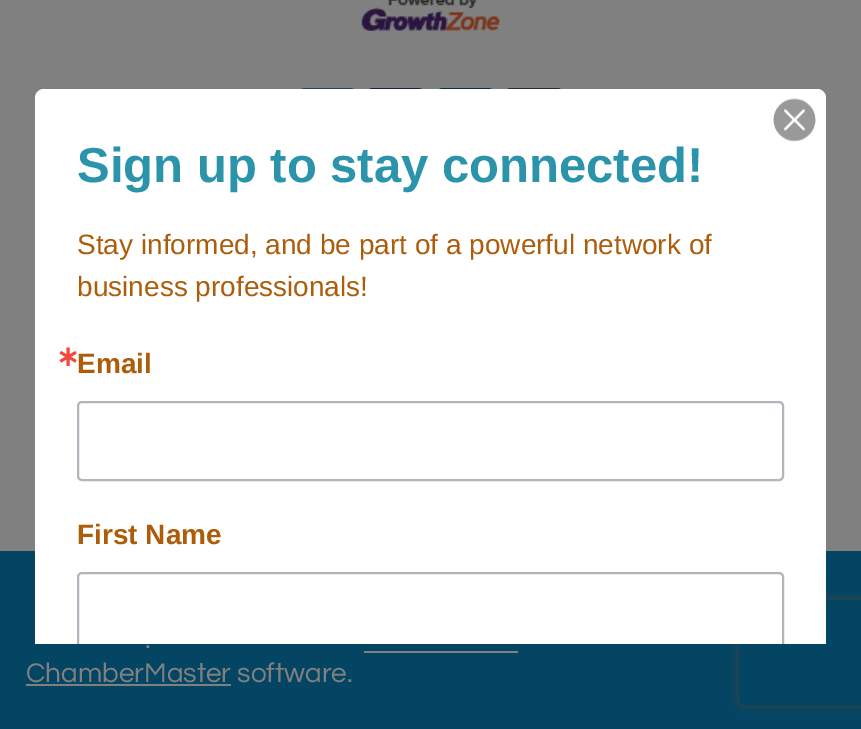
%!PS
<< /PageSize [861 729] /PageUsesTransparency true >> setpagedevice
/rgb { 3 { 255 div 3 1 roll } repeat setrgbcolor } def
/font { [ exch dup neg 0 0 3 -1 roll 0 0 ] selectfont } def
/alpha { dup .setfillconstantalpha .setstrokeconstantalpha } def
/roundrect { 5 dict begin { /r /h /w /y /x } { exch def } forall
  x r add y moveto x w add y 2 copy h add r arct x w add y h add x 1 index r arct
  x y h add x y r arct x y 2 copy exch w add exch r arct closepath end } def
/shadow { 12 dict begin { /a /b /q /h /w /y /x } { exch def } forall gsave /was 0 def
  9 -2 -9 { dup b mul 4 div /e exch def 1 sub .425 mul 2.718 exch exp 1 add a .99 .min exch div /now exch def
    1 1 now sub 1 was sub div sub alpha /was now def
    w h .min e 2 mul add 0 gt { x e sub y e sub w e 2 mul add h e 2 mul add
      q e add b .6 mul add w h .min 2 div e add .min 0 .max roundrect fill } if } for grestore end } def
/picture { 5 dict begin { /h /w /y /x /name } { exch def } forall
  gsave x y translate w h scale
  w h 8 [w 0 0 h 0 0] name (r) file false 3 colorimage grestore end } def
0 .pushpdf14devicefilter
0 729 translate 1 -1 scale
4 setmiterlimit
128 128 128 rgb
0 0 861 729 rectfill
43 86 119 rgb
298 88 59 59 7 roundrect fill
0.2 alpha
0 0 0 rgb
2 setlinewidth
299 89 57 57 6 roundrect stroke
1 alpha
30 45 76 rgb
366 88 59 59 7 roundrect fill
0.2 alpha
0 0 0 rgb
367 89 57 57 6 roundrect stroke
1 alpha
0 62 91 rgb
436 88 59 59 7 roundrect fill
0.2 alpha
0 0 0 rgb
437 89 57 57 6 roundrect stroke
1 alpha
32 57 78 rgb
504 88 60 59 7 roundrect fill
0.2 alpha
0 0 0 rgb
505 89 58 57 6 roundrect stroke
1 alpha
4 69 99 rgb
0 551 861 178 rectfill
gsave
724 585 moveto 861 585 lineto 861 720 lineto 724 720 lineto closepath 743 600 moveto 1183 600 lineto 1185 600 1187 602 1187 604 curveto 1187 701 lineto 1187 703 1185 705 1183 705 curveto 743 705 lineto 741 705 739 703 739 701 curveto 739 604 lineto 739 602 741 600 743 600 curveto closepath eoclip newpath
64 64 64 rgb
739 600 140 105 4 4.5 1 shadow
grestore
255 255 255 rgb
44 89 moveto 817 89 lineto 822 89 826 93 826 98 curveto 826 644 lineto 35 644 lineto 35 98 lineto 35 93 39 89 44 89 curveto closepath fill
(img/1.rgb) 773 98 43 44 picture
176 182 187 rgb
78 402 705 78 4 roundrect stroke
128 128 128 rgb
364 651 154 2 rectfill
gsave
35 89 791 555 rectclip
176 182 187 rgb
78 573 705 79 4 roundrect stroke
grestore
(img/2.rgb) 361 0 139 31 picture
26 684 205 2 rectfill
/LiberationSans-Bold 49 font
43 148 171 rgb
77 182 moveto (Sign up to stay connected!) show
/LiberationSans-Regular 28 font
173 92 10 rgb
77 254 moveto (Stay informed, and be part of a powerful network of) show
77 296 moveto (business professionals!) show
/DejaVuSans-Bold 28 font
245 70 59 rgb
56 366 moveto (∗) show
/LiberationSans-Bold 28 font
173 92 10 rgb
77 373 moveto (Email) show
77 544 moveto (First Name) show
/Questrial-Regular 28 font
128 128 128 rgb
145 648 moveto (.) show
26 682 moveto (ChamberMaster software.) show
.poppdf14devicefilter showpage
